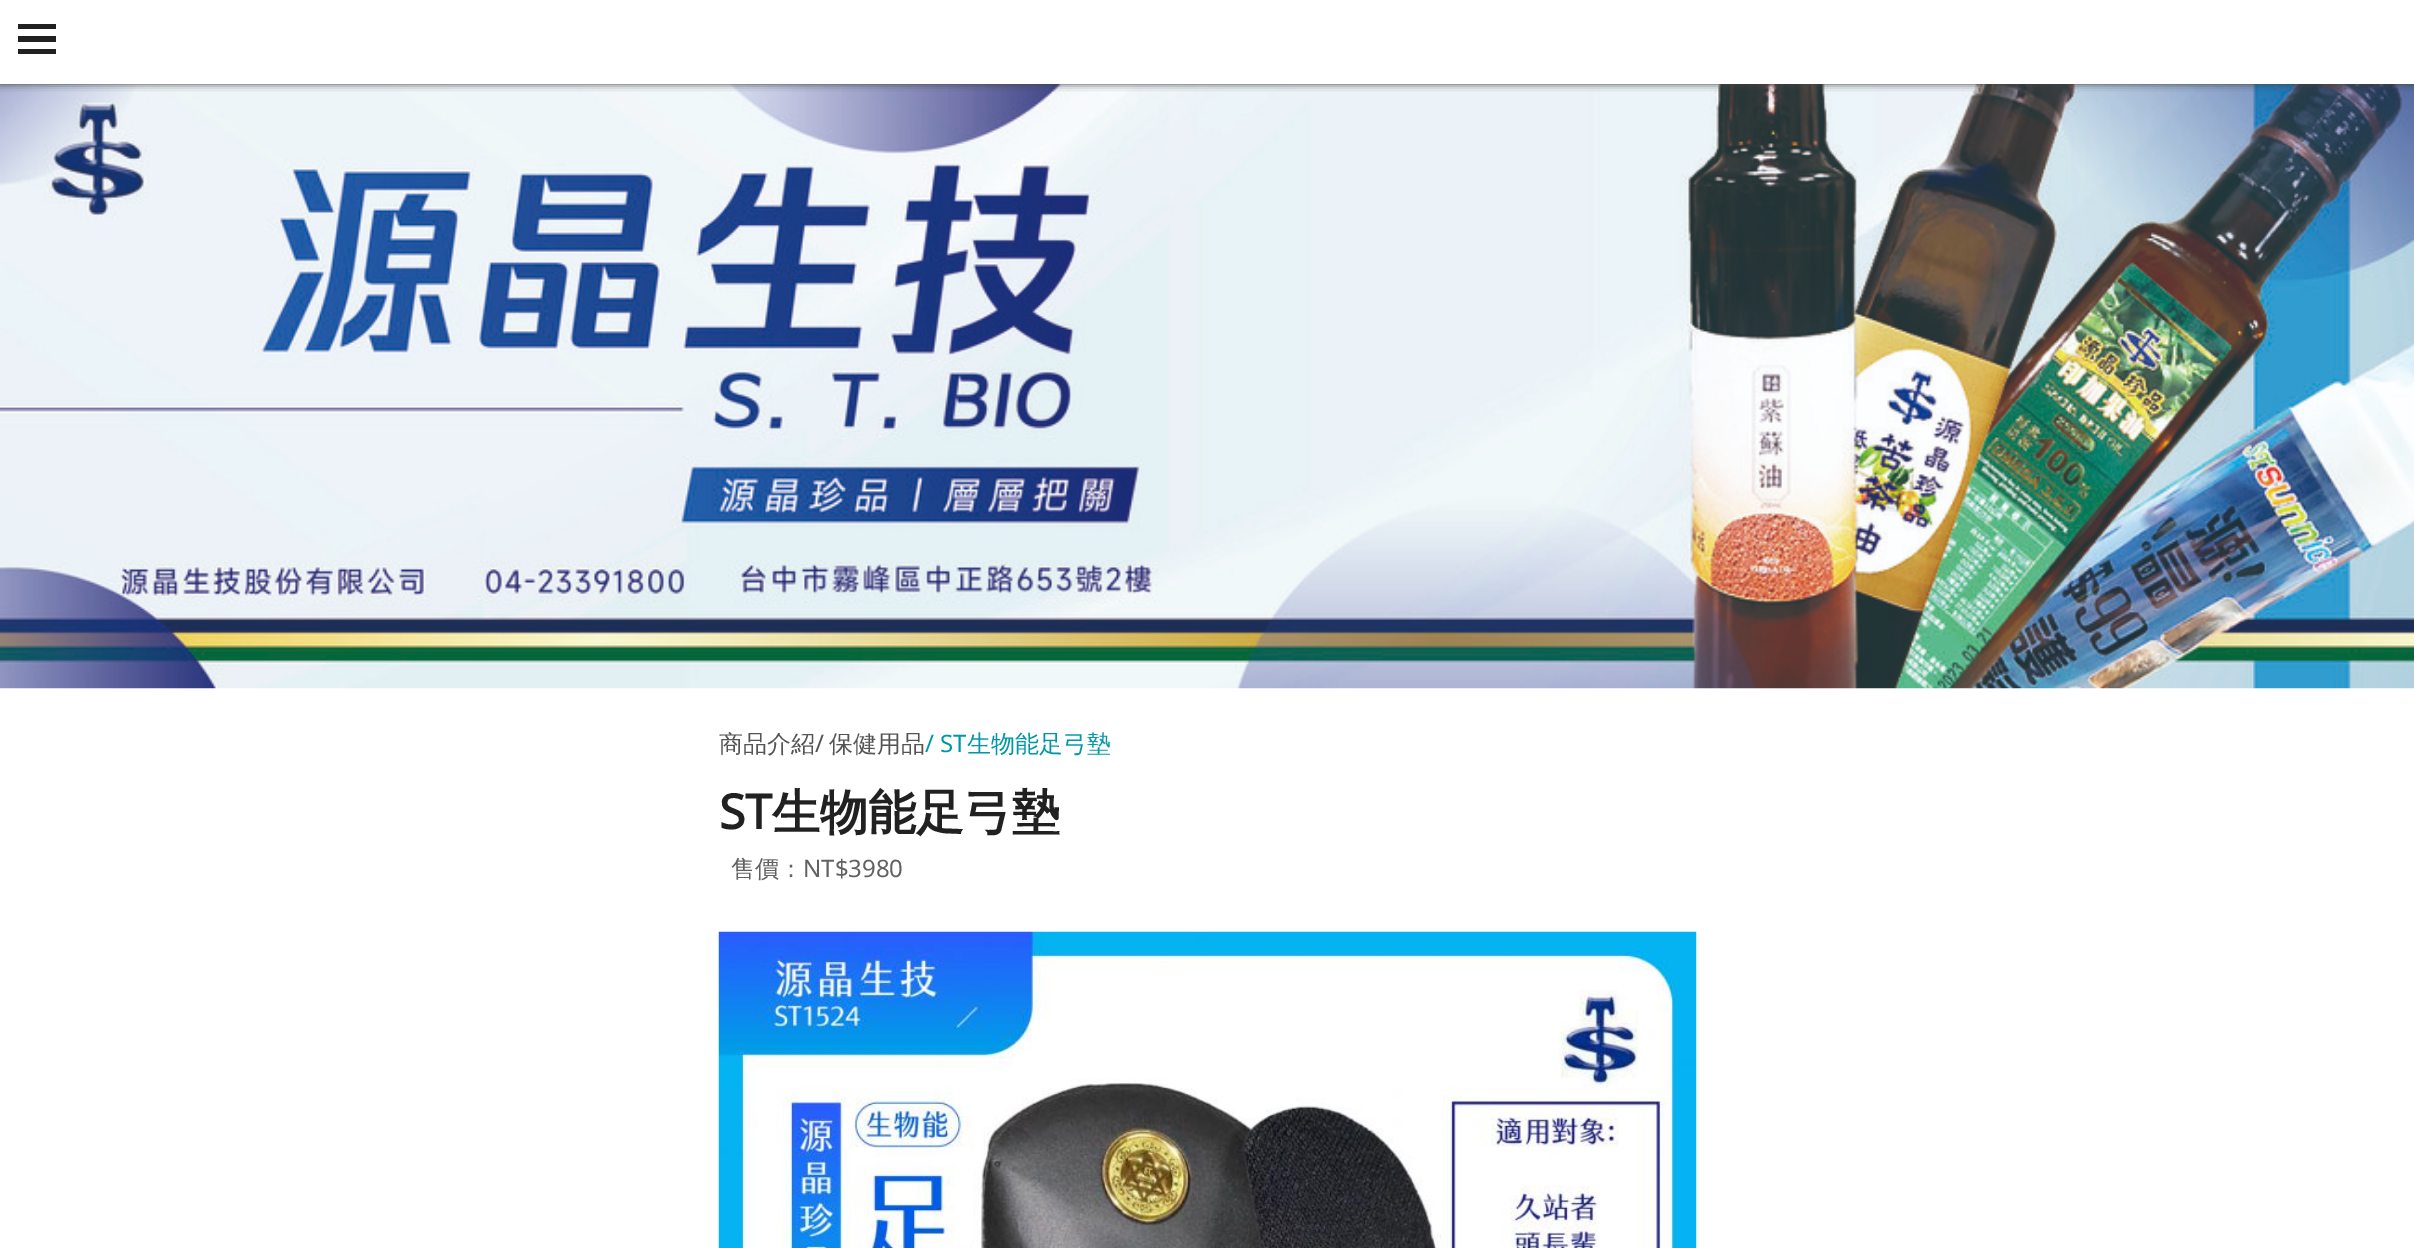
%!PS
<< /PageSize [2414 1248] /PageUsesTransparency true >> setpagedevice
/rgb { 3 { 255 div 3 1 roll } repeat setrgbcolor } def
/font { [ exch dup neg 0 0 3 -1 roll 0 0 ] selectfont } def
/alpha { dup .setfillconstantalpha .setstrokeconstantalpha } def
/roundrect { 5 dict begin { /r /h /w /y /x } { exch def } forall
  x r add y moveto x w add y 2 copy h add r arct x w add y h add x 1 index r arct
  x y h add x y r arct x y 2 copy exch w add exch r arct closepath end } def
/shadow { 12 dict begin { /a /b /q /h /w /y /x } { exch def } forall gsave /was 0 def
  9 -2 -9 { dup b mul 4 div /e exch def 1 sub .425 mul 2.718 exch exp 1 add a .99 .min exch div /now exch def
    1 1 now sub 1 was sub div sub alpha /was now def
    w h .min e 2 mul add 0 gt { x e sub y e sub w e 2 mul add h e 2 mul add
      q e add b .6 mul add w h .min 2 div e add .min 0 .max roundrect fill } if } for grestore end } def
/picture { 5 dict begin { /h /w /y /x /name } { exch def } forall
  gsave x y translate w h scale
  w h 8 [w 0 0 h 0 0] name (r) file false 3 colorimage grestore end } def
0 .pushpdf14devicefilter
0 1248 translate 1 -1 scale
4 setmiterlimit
255 255 255 rgb
0 0 2414 1248 rectfill
(img/1.rgb) 0 84 2414 605 picture
gsave
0 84 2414 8 rectclip
66 66 66 rgb
0 0 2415 84 0 4 1 shadow
grestore
[
  [18 24 38 5 33 33 33]
  [18 49 38 5 33 33 33]
  [18 36 38 6 33 33 33]
] { aload pop rgb rectfill } forall
(img/2.rgb) 718 931 979 317 picture
/WenQuanYiZenHei-Medium 24 font
84 84 84 rgb
719 752 moveto (商品介紹) show
/NotoSans-Regular 24 font
815 752 moveto (/) show
/WenQuanYiZenHei-Medium 24 font
829 752 moveto (保健用品) show
/NotoSans-Regular 24 font
0 151 167 rgb
925 752 moveto (/ ST) show
/WenQuanYiZenHei-Medium 24 font
967 752 moveto (生物能足弓墊) show
/NotoSans-Bold 48 font
33 33 33 rgb
719 829 moveto (ST) show
/WenQuanYiZenHei-Bold 48 font
772 829 moveto (生物能足弓墊) show
/WenQuanYiZenHei-Medium 24 font
97 97 97 rgb
731 877 moveto (售價：) show
/NotoSans-Regular 24 font
803 877 moveto (NT$3980) show
.poppdf14devicefilter showpage
